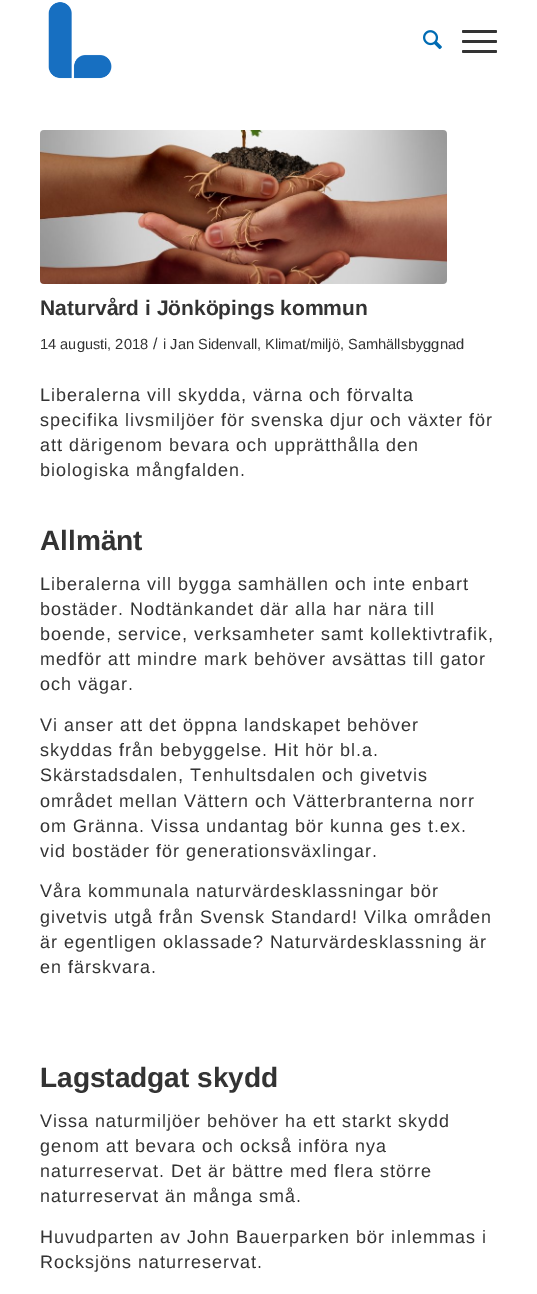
%!PS
<< /PageSize [537 1294] >> setpagedevice
/rgb { 3 { 255 div 3 1 roll } repeat setrgbcolor } def
/font { [ exch dup neg 0 0 3 -1 roll 0 0 ] selectfont } def
/roundrect { 5 dict begin { /r /h /w /y /x } { exch def } forall
  x r add y moveto x w add y 2 copy h add r arct x w add y h add x 1 index r arct
  x y h add x y r arct x y 2 copy exch w add exch r arct closepath end } def
/picture { 5 dict begin { /h /w /y /x /name } { exch def } forall
  gsave x y translate w h scale
  w h 8 [w 0 0 h 0 0] name (r) file false 3 colorimage grestore end } def
0 1294 translate 1 -1 scale
4 setmiterlimit
255 255 255 rgb
0 0 537 1294 rectfill
(img/1.rgb) 48 2 64 77 picture
(img/2.rgb) 423 30 19 20 picture
51 51 51 rgb
462 40 35 3 1.5 roundrect fill
462 30 35 3 1.5 roundrect fill
462 50 35 3 1.5 roundrect fill
(img/3.rgb) 40 130 407 154 picture
/LiberationSans-Bold 21 font
40 315 moveto (Naturvård i Jönköpings kommun) show
/LiberationSans-Regular 14.6 font
40 349 moveto (14 augusti, 2018) show
/LiberationSans-Regular 16 font
153 349 moveto (/) show
/LiberationSans-Regular 14.6 font
163 349 moveto (i Jan Sidenvall, Klimat/miljö, Samhällsbyggnad) show
/LiberationSans-Regular 18 font
40 401 moveto 1 0 (Liberalerna vill skydda, värna och förvalta) ashow
40 426 moveto 1 0 (specifika livsmiljöer för svenska djur och växter för) ashow
40 451 moveto 1 0 (att därigenom bevara och upprätthålla den) ashow
40 476 moveto 1 0 (biologiska mångfalden.) ashow
/LiberationSans-Bold 28 font
40 550 moveto (Allmänt) show
/LiberationSans-Regular 18 font
40 590 moveto 1 0 (Liberalerna vill bygga samhällen och inte enbart) ashow
40 615 moveto 1 0 (bostäder. Nodtänkandet där alla har nära till) ashow
40 640 moveto 1 0 (boende, service, verksamheter samt kollektivtrafik,) ashow
40 665 moveto 1 0 (medför att mindre mark behöver avsättas till gator) ashow
40 690 moveto 1 0 (och vägar.) ashow
40 731 moveto 1 0 (Vi anser att det öppna landskapet behöver) ashow
40 756 moveto 1 0 (skyddas från bebyggelse. Hit hör bl.a.) ashow
40 781 moveto 1 0 (Skärstadsdalen, Tenhultsdalen och givetvis) ashow
40 807 moveto 1 0 (området mellan Vättern och Vätterbranterna norr) ashow
40 832 moveto 1 0 (om Gränna. Vissa undantag bör kunna ges t.ex.) ashow
40 857 moveto 1 0 (vid bostäder för generationsväxlingar.) ashow
40 897 moveto 1 0 (Våra kommunala naturvärdesklassningar bör) ashow
40 923 moveto 1 0 (givetvis utgå från Svensk Standard! Vilka områden) ashow
40 948 moveto 1 0 (är egentligen oklassade? Naturvärdesklassning är) ashow
40 973 moveto 1 0 (en färskvara.) ashow
/LiberationSans-Bold 28 font
40 1087 moveto (Lagstadgat skydd) show
/LiberationSans-Regular 18 font
40 1127 moveto 1 0 (Vissa naturmiljöer behöver ha ett starkt skydd) ashow
40 1152 moveto 1 0 (genom att bevara och också införa nya) ashow
40 1177 moveto 1 0 (naturreservat. Det är bättre med flera större) ashow
40 1202 moveto 1 0 (naturreservat än många små.) ashow
40 1243 moveto 1 0 (Huvudparten av John Bauerparken bör inlemmas i) ashow
40 1268 moveto 1 0 (Rocksjöns naturreservat.) ashow
showpage
